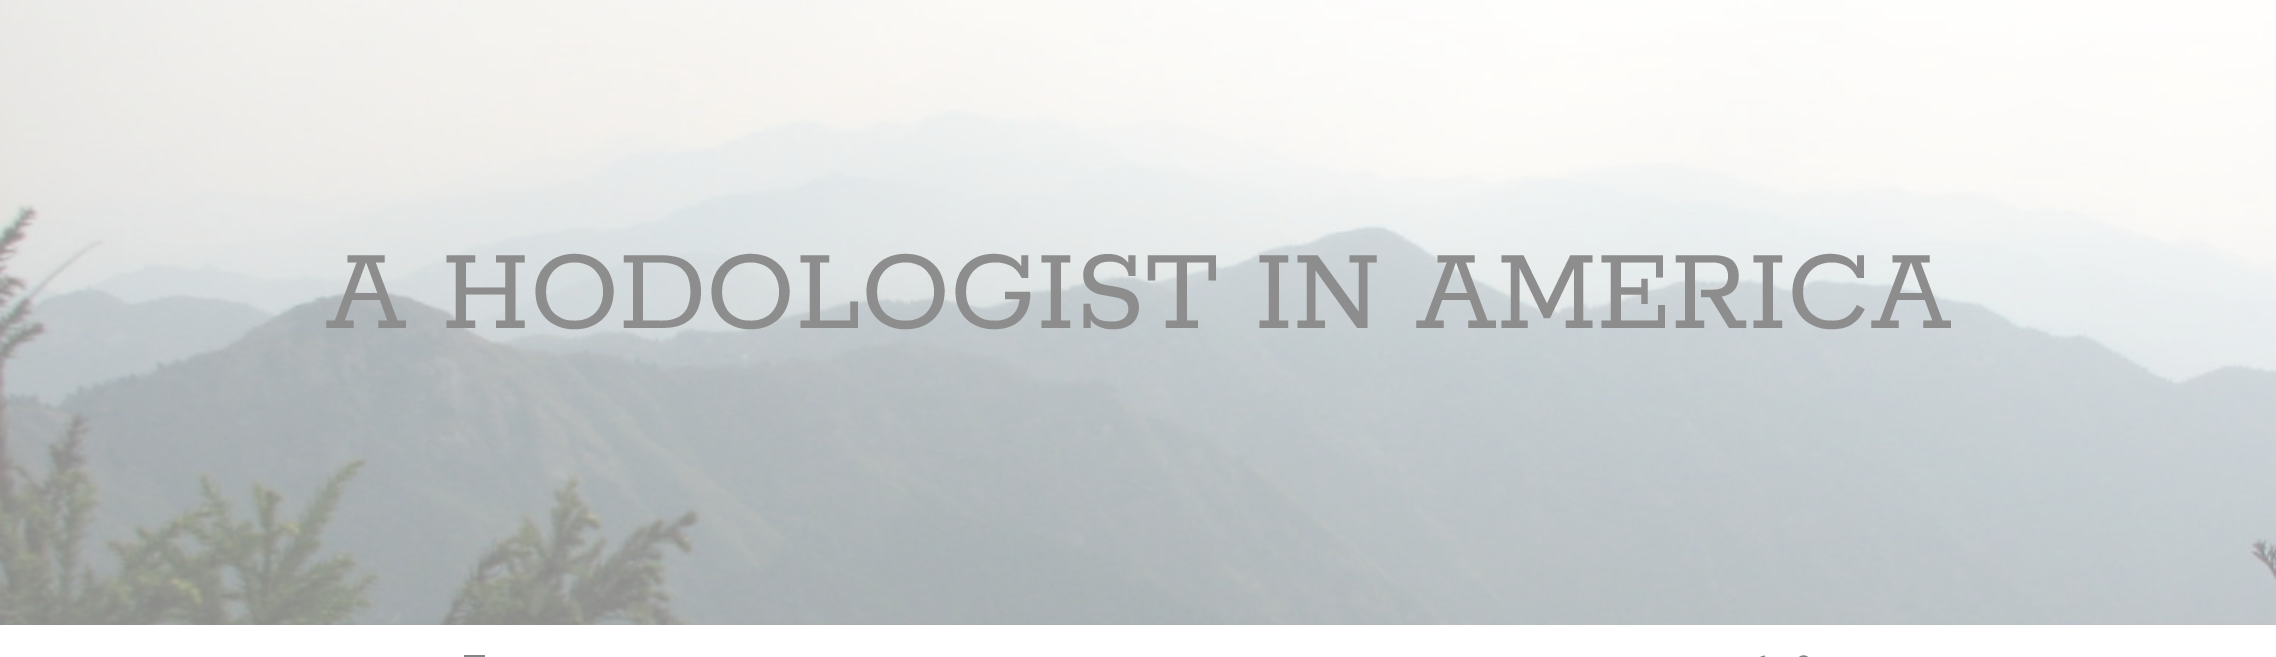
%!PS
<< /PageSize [2276 657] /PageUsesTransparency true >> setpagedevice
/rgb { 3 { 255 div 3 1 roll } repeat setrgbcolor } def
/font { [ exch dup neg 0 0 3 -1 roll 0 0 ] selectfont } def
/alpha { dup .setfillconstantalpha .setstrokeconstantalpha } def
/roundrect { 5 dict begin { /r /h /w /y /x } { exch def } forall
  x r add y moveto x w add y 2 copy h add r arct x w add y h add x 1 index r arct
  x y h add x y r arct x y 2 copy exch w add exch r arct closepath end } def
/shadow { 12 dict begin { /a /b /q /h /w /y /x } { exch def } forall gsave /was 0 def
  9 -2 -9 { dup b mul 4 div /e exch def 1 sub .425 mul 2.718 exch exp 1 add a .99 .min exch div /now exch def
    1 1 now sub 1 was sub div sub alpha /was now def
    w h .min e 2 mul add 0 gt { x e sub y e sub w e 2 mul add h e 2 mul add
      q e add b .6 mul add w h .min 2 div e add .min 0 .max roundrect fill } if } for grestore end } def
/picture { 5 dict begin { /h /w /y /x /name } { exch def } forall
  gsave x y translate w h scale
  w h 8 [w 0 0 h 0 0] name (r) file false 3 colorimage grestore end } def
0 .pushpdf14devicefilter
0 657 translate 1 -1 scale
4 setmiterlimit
255 255 255 rgb
0 0 2276 657 rectfill
(img/1.rgb) 0 0 2276 625 picture
133 133 133 rgb
0 626 2276 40 0 3 0.1 shadow
255 255 255 rgb
0 625 2276 32 rectfill
133 133 133 rgb
464 655 21 2 rectfill
(img/2.rgb) 1760 655 6 2 picture
(img/3.rgb) 1799 655 10 2 picture
/Rokkitt-SemiBold 125 font
141 141 141 rgb
326 328 moveto (A HODOLOGIST IN AMERICA) show
.poppdf14devicefilter showpage
